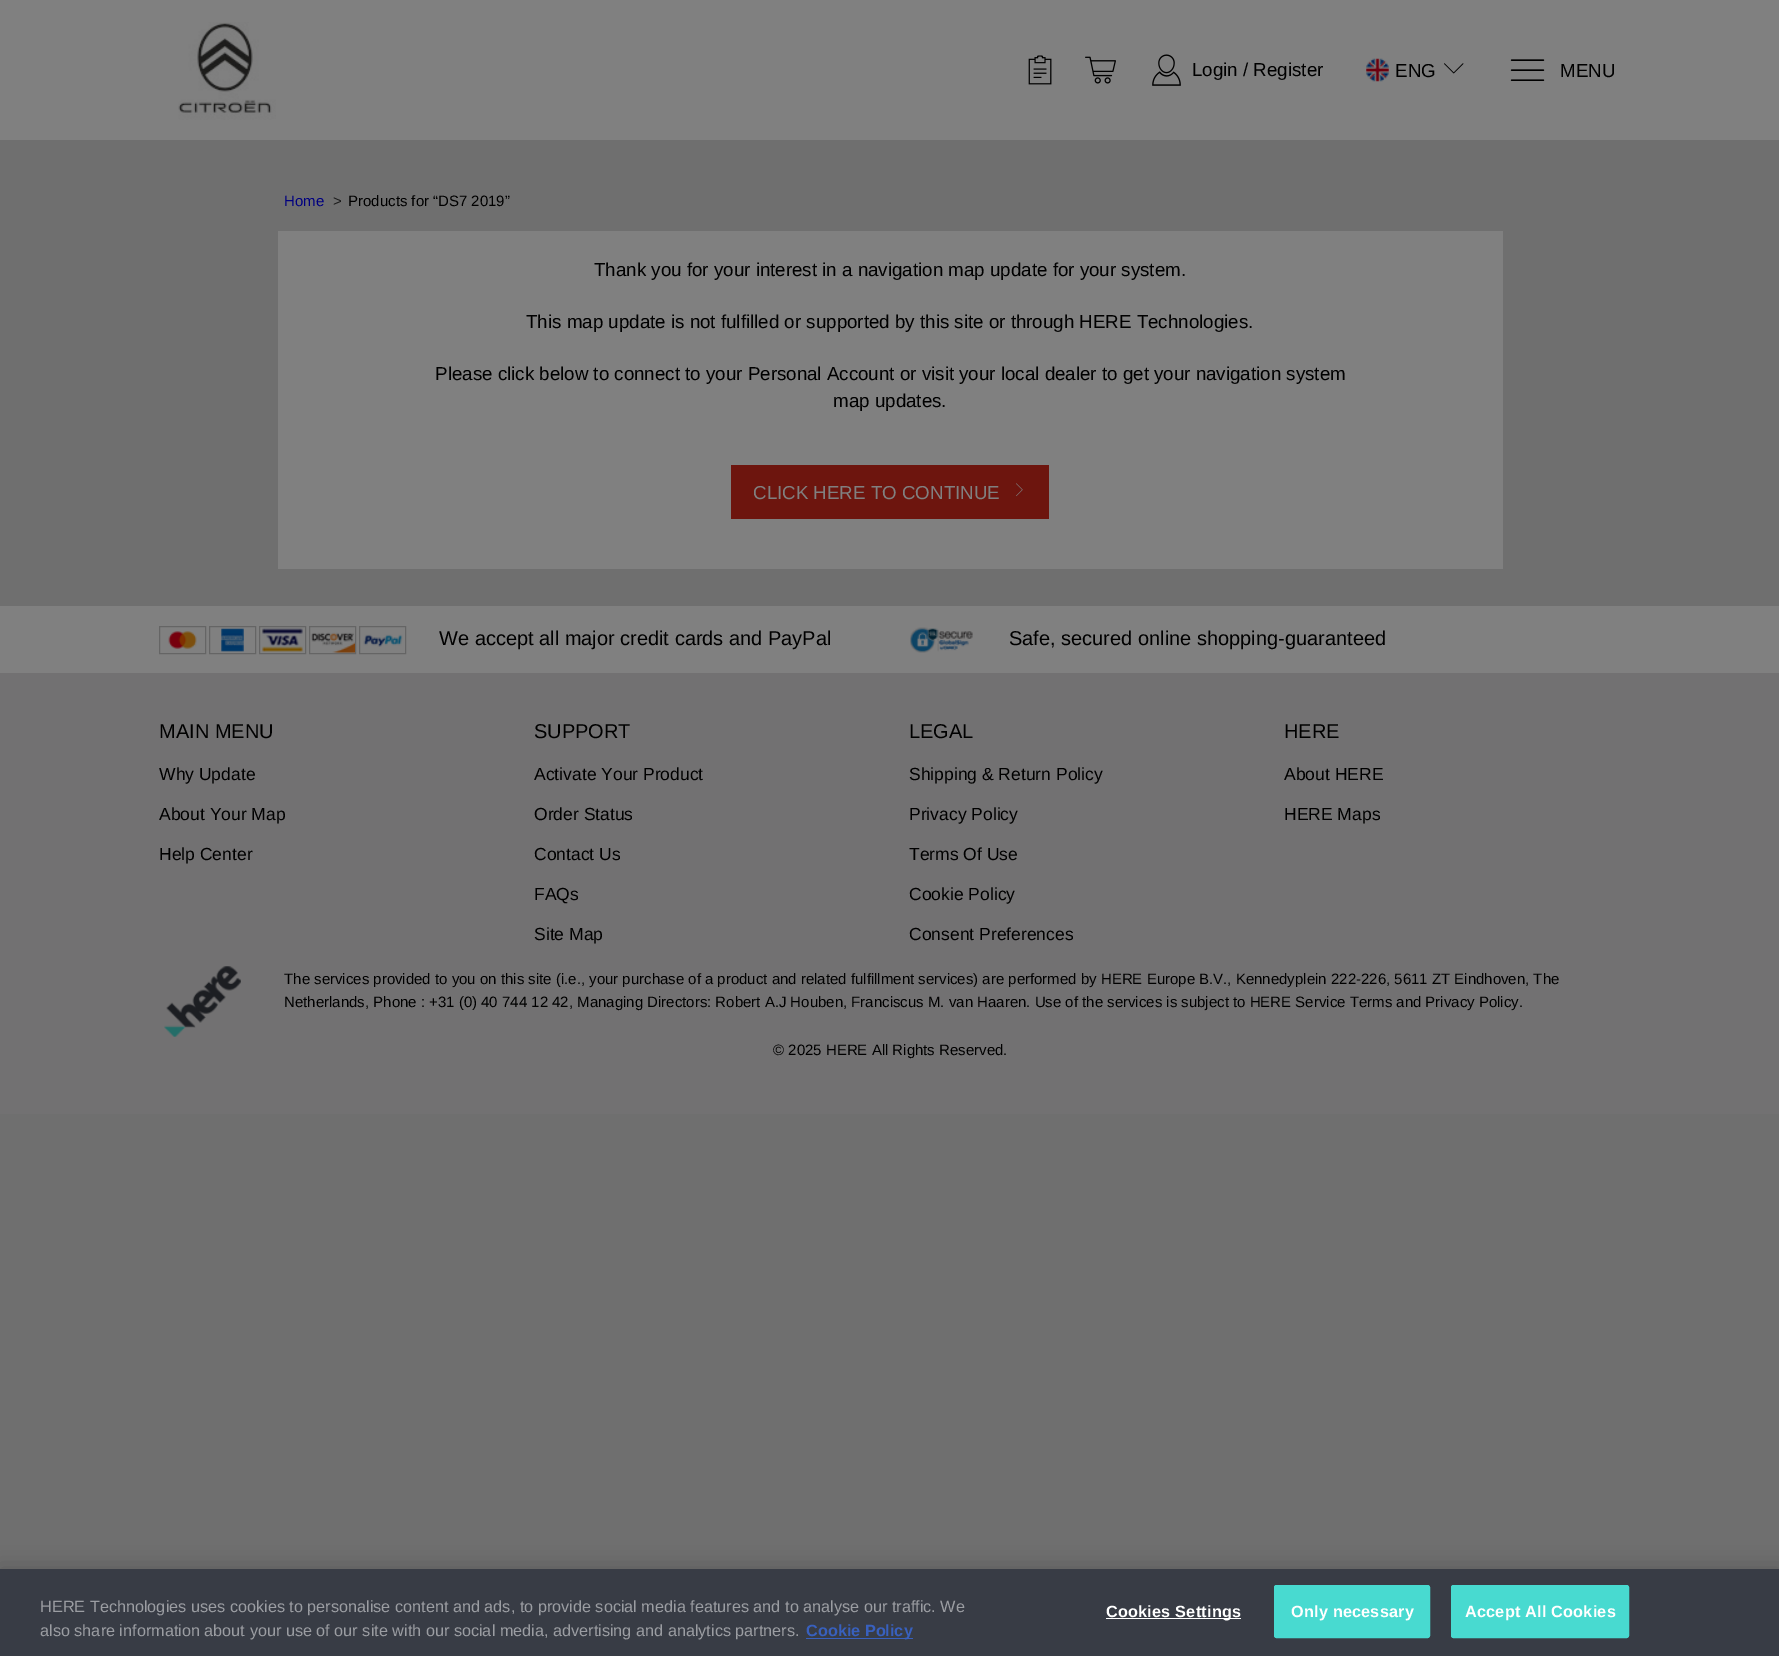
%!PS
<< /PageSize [1779 1656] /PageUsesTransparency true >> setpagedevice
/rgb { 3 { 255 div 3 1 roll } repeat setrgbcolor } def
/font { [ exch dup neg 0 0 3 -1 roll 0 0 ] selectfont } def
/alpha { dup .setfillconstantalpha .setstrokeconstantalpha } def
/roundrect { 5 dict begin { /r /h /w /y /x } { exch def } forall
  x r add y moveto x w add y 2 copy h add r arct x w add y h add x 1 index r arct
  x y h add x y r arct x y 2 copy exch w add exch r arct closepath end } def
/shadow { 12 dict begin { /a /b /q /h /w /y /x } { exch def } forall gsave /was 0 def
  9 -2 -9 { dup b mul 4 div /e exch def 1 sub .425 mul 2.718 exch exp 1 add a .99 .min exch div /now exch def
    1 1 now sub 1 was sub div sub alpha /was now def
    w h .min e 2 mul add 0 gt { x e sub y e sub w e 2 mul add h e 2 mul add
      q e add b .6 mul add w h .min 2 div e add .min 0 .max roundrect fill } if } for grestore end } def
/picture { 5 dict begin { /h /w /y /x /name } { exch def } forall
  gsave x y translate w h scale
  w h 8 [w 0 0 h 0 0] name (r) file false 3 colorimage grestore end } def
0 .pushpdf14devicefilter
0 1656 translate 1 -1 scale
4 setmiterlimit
111 111 111 rgb
0 0 1779 1656 rectfill
128 128 128 rgb
0 0 1779 140 rectfill
(img/1.rgb) 178 22 98 98 picture
(img/2.rgb) 1028 55 24 30 picture
(img/3.rgb) 1085 56 31 28 picture
(img/4.rgb) 1152 54 29 32 picture
(img/5.rgb) 1366 58 23 24 picture
(img/6.rgb) 1444 63 20 11 picture
(img/7.rgb) 1510 59 35 22 picture
278 231 1225 338 rectfill
109 21 14 rgb
731 465 318 54 rectfill
(img/8.rgb) 1016 483 7 14 picture
128 128 128 rgb
0 606 1779 67 rectfill
101 101 101 rgb
159.5 626.5 46 27 rectstroke
(img/9.rgb) 168 631 29 18 picture
209.5 626.5 46 27 rectstroke
(img/10.rgb) 221 628 23 24 picture
259.5 626.5 46 27 rectstroke
(img/11.rgb) 262 628 41 24 picture
309.5 626.5 46 27 rectstroke
(img/12.rgb) 311 632 44 21 picture
359.5 626.5 46 27 rectstroke
(img/13.rgb) 363 634 40 13 picture
(img/14.rgb) 910 627 63 26 picture
114 113 114 rgb
0 673 1779 441 rectfill
(img/15.rgb) 164 966 77 71 picture
0 0 0 rgb
0 1569 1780 87 0 11 0.2 shadow
[
  [0 1569 1779 87 56 60 69]
  [806 1638 107 1 56 96 190]
  [1106 1618 135 1 255 255 255]
] { aload pop rgb rectfill } forall
72 218 208 rgb
1274.5 1585.5 155 52 2 roundrect gsave fill grestore
stroke
1451.5 1585.5 177 52 2 roundrect gsave fill grestore
stroke
/LiberationSans-Regular 18.75 font
0 0 0 rgb
[
  [(Login / Register) 1192 76]
  [(ENG) 1395 77]
  [(MENU) 1560 77]
] { aload pop moveto show } forall
/LiberationSans-Regular 15 font
0 0 128 rgb
284 206 moveto (Home) show
26 26 26 rgb
333 206 moveto (>) show
0 0 0 rgb
348 206 moveto (Products for “DS7 2019”) show
/LiberationSans-Regular 18.75 font
[
  [(Thank you for your interest in a navigation map update for your system.) 594 276]
  [(This map update is not fulfilled or supported by this site or through HERE Technologies.) 526 328]
  [(Please click below to connect to your Personal Account or visit your local dealer to get your navigation system) 435 380]
  [(map updates.) 833 407]
] { aload pop moveto show } forall
128 128 128 rgb
753 499 moveto (CLICK HERE TO CONTINUE) show
/LiberationSans-Regular 20 font
0 0 0 rgb
[
  [(We accept all major credit cards and PayPal) 439 645]
  [(Safe, secured online shopping-guaranteed) 1009 645]
  [(MAIN MENU) 159 738]
] { aload pop moveto show } forall
/LiberationSans-Regular 17.5 font
[
  [(Why Update) 159 780]
  [(About Your Map) 159 820]
  [(Help Center) 159 860]
] { aload pop moveto show } forall
/LiberationSans-Regular 20 font
534 738 moveto (SUPPORT) show
/LiberationSans-Regular 17.5 font
[
  [(Activate Your Product) 534 780]
  [(Order Status) 534 820]
  [(Contact Us) 534 860]
  [(FAQs) 534 900]
  [(Site Map) 534 940]
] { aload pop moveto show } forall
/LiberationSans-Regular 20 font
909 738 moveto (LEGAL) show
/LiberationSans-Regular 17.5 font
[
  [(Shipping & Return Policy) 909 780]
  [(Privacy Policy) 909 820]
  [(Terms Of Use) 909 860]
  [(Cookie Policy) 909 900]
  [(Consent Preferences) 909 940]
] { aload pop moveto show } forall
/LiberationSans-Regular 20 font
1284 738 moveto (HERE) show
/LiberationSans-Regular 17.5 font
1284 780 moveto (About HERE) show
1284 820 moveto (HERE Maps) show
/LiberationSans-Regular 15 font
[
  [(The services provided to you on this site \(i.e., your purchase of a product and related fulfillment services\) are performed by HERE Europe B.V., Kennedyplein 222-226, 5611 ZT Eindhoven, The) 284 984]
  [(Netherlands, Phone : +31 \(0\) 40 744 12 42, Managing Directors: Robert A.J Houben, Franciscus M. van Haaren. Use of the services is subject to HERE Service Terms and Privacy Policy.) 284 1007]
  [(© 2025 HERE All Rights Reserved.) 773 1055]
] { aload pop moveto show } forall
/LiberationSans-Regular 16.25 font
155 157 162 rgb
40 1612 moveto (HERE Technologies uses cookies to personalise content and ads, to provide social media features and to analyse our traffic. We) show
40 1636 moveto (also share information about your use of our site with our social media, advertising and analytics partners.) show
/LiberationSans-Bold 16.25 font
56 96 190 rgb
806 1636 moveto (Cookie Policy) show
255 255 255 rgb
1106 1617 moveto 0.2 0 (Cookies Settings) ashow
1291 1617 moveto 0.2 0 (Only necessary) ashow
1465 1617 moveto 0.2 0 (Accept All Cookies) ashow
.poppdf14devicefilter showpage
